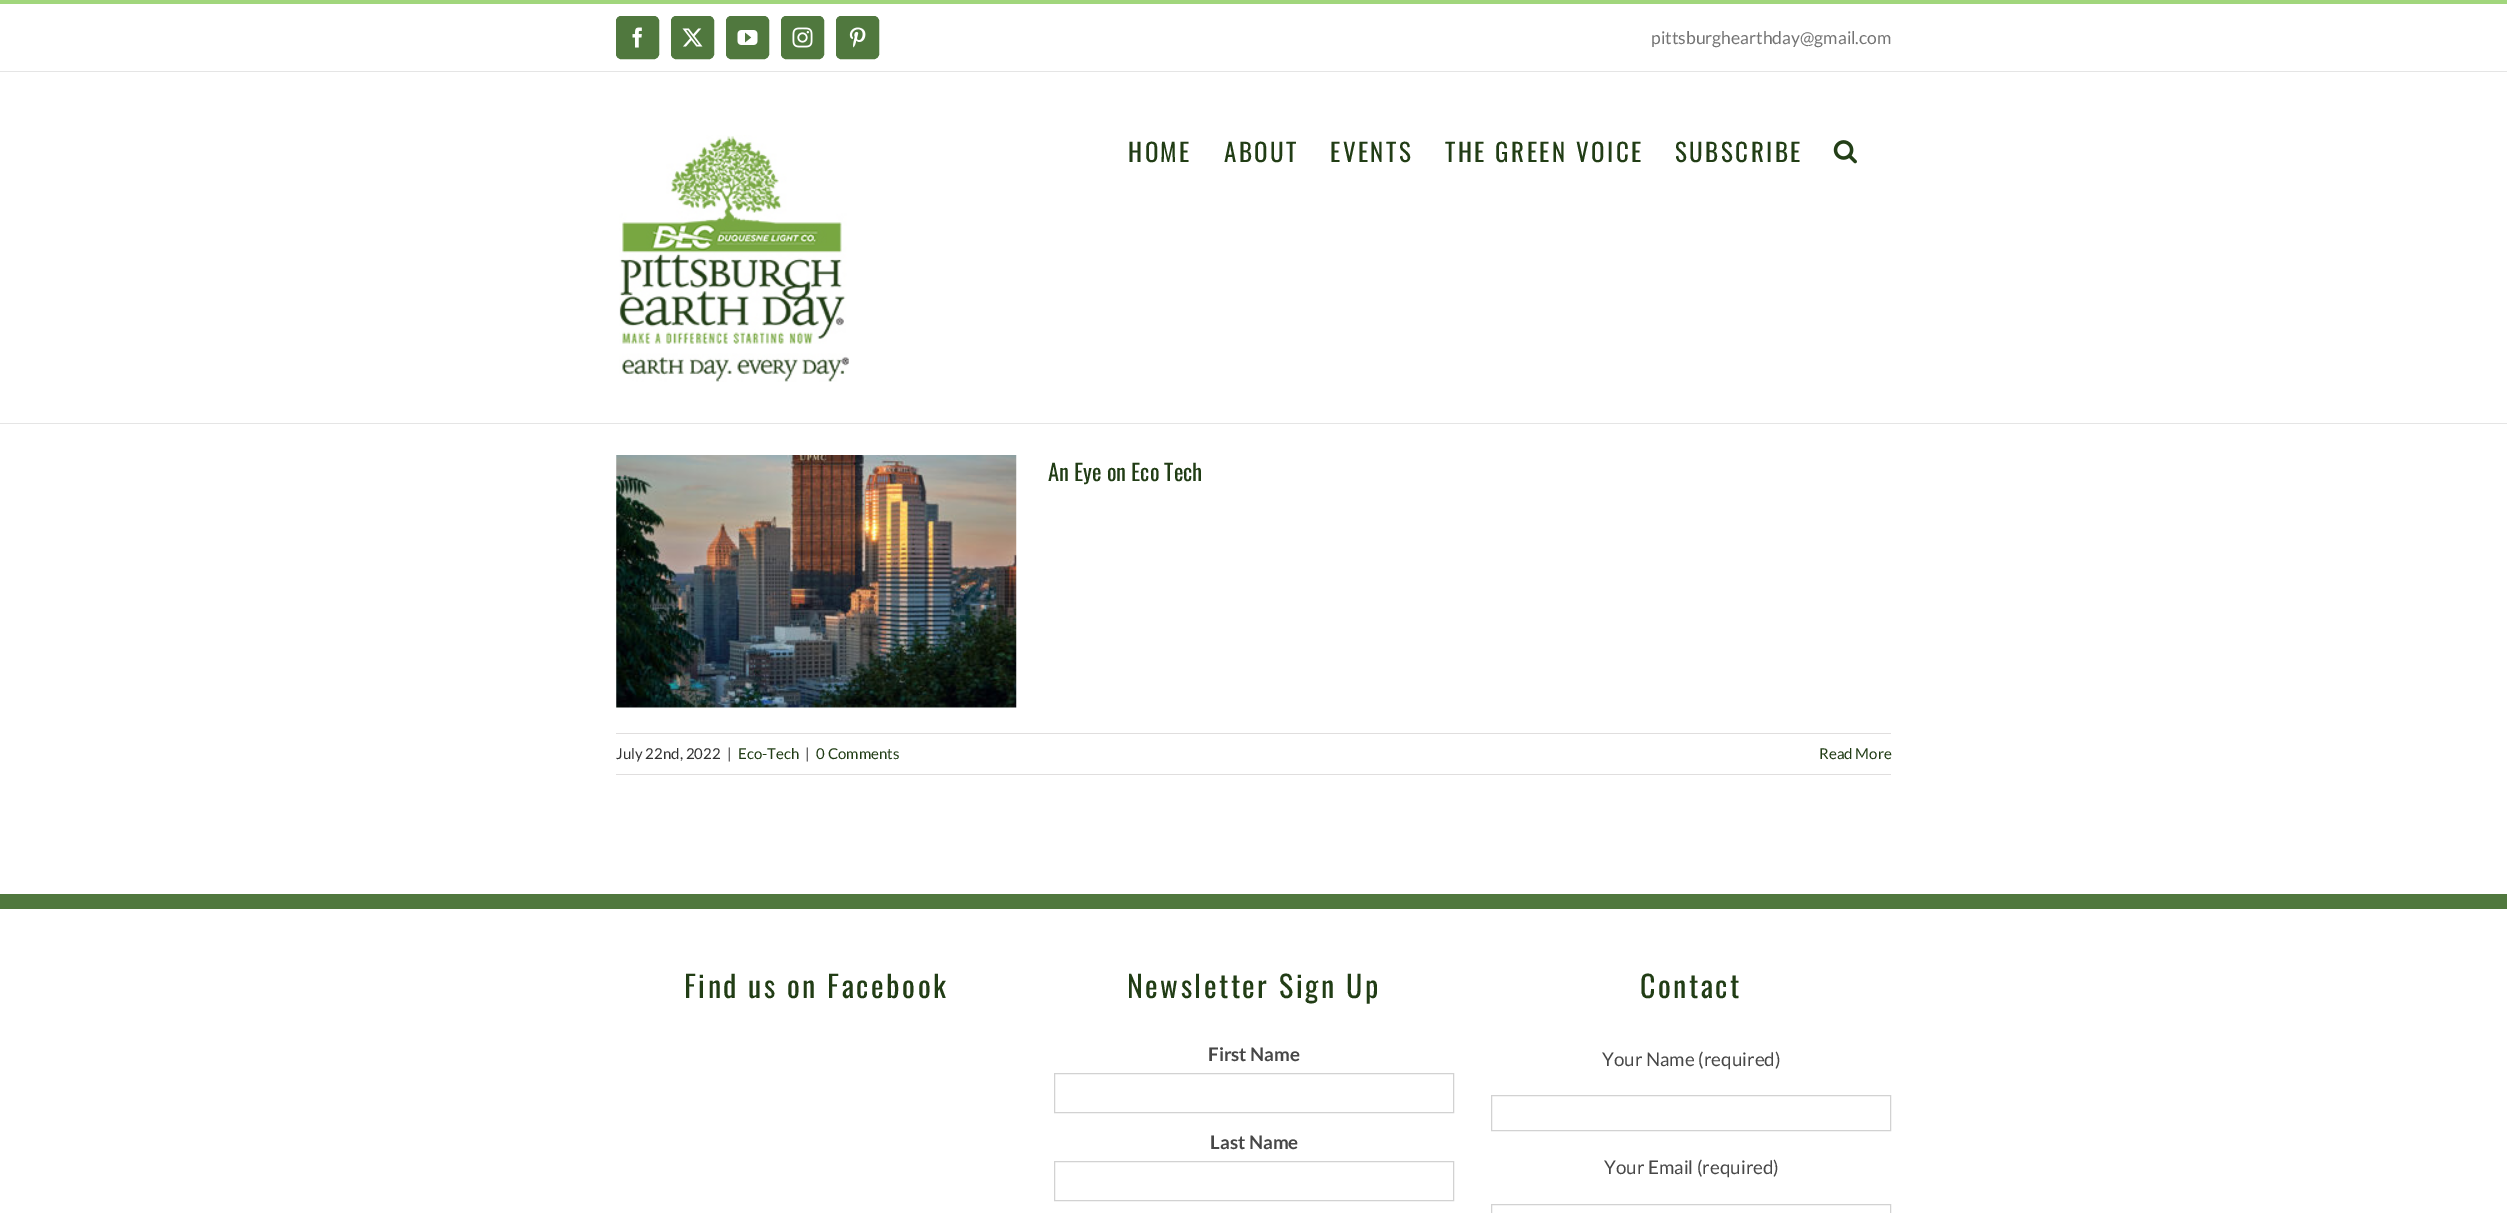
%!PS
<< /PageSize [2507 1213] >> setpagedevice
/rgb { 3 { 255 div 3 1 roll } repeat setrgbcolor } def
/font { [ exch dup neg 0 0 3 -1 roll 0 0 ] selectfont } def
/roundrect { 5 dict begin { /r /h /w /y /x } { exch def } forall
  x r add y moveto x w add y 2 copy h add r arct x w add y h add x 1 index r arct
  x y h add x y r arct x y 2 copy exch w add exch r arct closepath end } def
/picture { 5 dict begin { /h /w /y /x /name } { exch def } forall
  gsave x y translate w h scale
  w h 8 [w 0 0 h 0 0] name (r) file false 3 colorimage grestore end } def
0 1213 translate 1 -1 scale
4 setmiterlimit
255 255 255 rgb
0 0 2507 1213 rectfill
161 214 124 rgb
0 0 2507 4 rectfill
229 229 229 rgb
0 71 2507 1 rectfill
80 120 62 rgb
616.5 16.5 42 42 4.5 roundrect gsave fill grestore
stroke
(img/1.rgb) 632 27 10 21 picture
671.5 16.5 42 42 4.5 roundrect gsave fill grestore
stroke
(img/2.rgb) 682 28 21 19 picture
726.5 16.5 42 42 4.5 roundrect gsave fill grestore
stroke
(img/3.rgb) 737 30 21 15 picture
781.5 16.5 42 42 4.5 roundrect gsave fill grestore
stroke
(img/4.rgb) 792 27 21 21 picture
836.5 16.5 42 42 4.5 roundrect gsave fill grestore
stroke
(img/5.rgb) 849 27 17 21 picture
229 229 229 rgb
0 423 2507 1 rectfill
(img/6.rgb) 619 135 230 247 picture
(img/7.rgb) 1833 140 24 24 picture
(img/8.rgb) 616 455 401 253 picture
[
  [616 733 1275 1 224 222 222]
  [616 774 1275 1 224 222 222]
  [0 894 2507 15 80 120 62]
] { aload pop rgb rectfill } forall
210 210 210 rgb
1054.5 1073.5 399 39 rectstroke
1054.5 1161.5 399 39 rectstroke
1491.5 1095.5 399 35 rectstroke
1491.5 1204.5 399 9 rectstroke
/Lato-Regular 17.5 font
116 116 116 rgb
1651 44 moveto (pittsburghearthday@gmail.com) show
/Oswald-Regular 25 font
33 61 21 rgb
1128 162 moveto 2.5 0 (HOME) ashow
1224 162 moveto 2.5 0 (ABOUT) ashow
1330 162 moveto 2.5 0 (EVENTS) ashow
1445 162 moveto 2.5 0 (THE GREEN VOICE) ashow
1675 162 moveto 2.5 0 (SUBSCRIBE) ashow
/Oswald-Regular 22.5 font
1048 481 moveto (An Eye on Eco Tech) show
/Lato-Regular 15 font
51 51 51 rgb
616 759 moveto (July 22nd, 2022) show
727 759 moveto (|) show
33 61 21 rgb
738 759 moveto (Eco-Tech) show
51 51 51 rgb
805 759 moveto (|) show
33 61 21 rgb
816 759 moveto (0 Comments) show
1819 759 moveto (Read More) show
/Oswald-Regular 30 font
684 998 moveto 2.5 0 (Find us on Facebook) ashow
1127 998 moveto 2.5 0 (Newsletter Sign Up) ashow
/Lato-Bold 18.75 font
71 71 71 rgb
1208 1061 moveto (First Name) show
1210 1149 moveto (Last Name) show
/Oswald-Regular 30 font
33 61 21 rgb
1640 998 moveto 2.5 0 (Contact) ashow
/Lato-Regular 18.75 font
71 71 71 rgb
1602 1066 moveto (Your Name \(required\)) show
1604 1174 moveto (Your Email \(required\)) show
showpage
